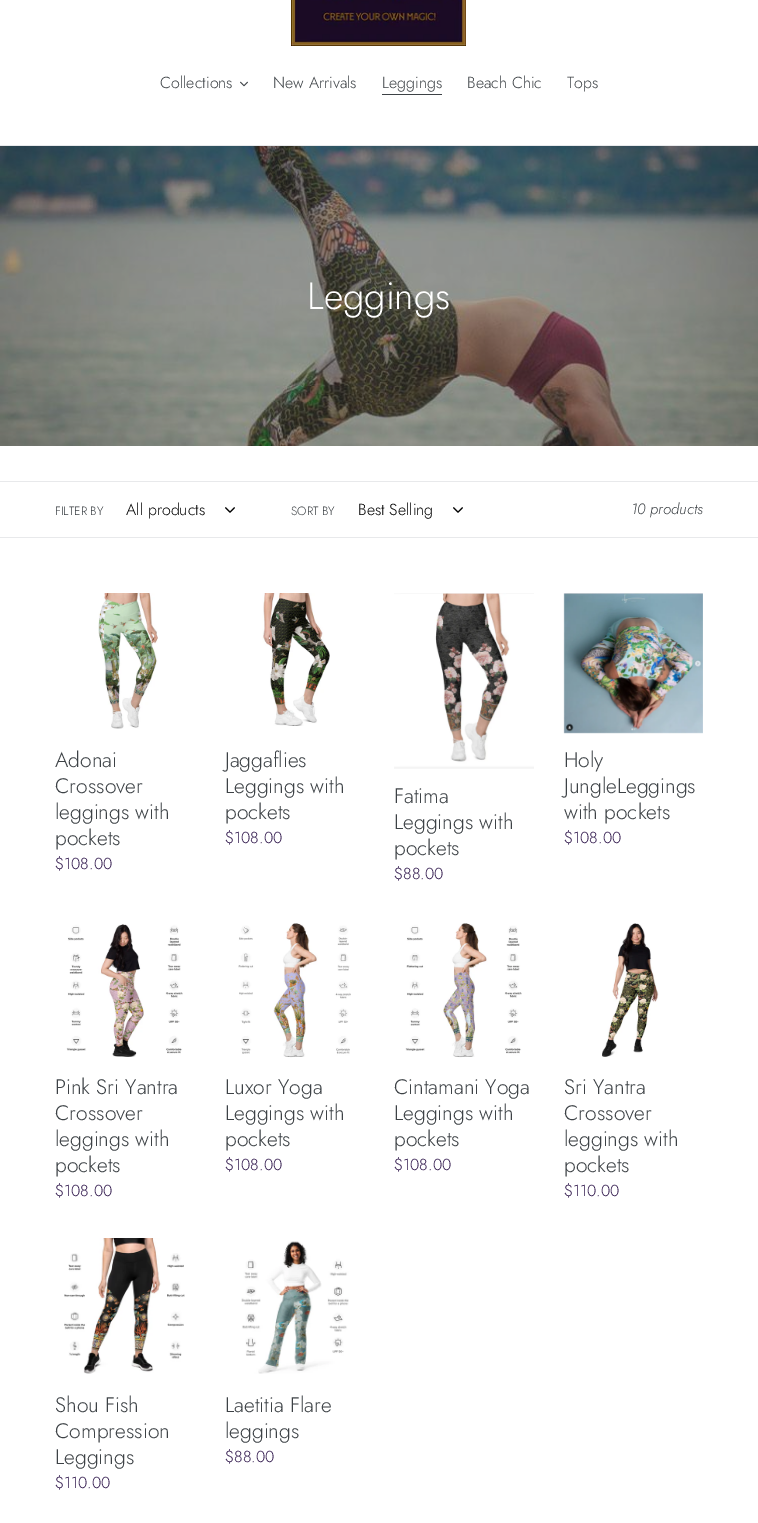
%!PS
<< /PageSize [758 1523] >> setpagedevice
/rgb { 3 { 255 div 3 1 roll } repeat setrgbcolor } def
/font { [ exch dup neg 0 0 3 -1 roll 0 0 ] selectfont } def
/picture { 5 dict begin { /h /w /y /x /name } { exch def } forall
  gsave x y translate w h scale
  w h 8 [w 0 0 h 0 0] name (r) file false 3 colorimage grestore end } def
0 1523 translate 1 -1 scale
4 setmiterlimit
255 255 255 rgb
0 0 758 1523 rectfill
(img/1.rgb) 291 0 175 46 picture
232 233 235 rgb
0 145 758 1 rectfill
(img/2.rgb) 240 81 8 6 picture
61 66 70 rgb
382 94 60 1 rectfill
(img/3.rgb) 0 146 758 300 picture
232 233 235 rgb
0 481 758 1 rectfill
0 537 758 1 rectfill
(img/4.rgb) 225 507 10 6 picture
(img/4.rgb) 453 507 10 6 picture
(img/5.rgb) 98 593 60 136 picture
(img/6.rgb) 262 593 68 133 picture
(img/7.rgb) 394 593 140 176 picture
(img/8.rgb) 563 593 140 141 picture
(img/9.rgb) 66 924 117 133 picture
(img/10.rgb) 238 923 113 135 picture
(img/11.rgb) 405 923 117 135 picture
(img/12.rgb) 602 923 57 134 picture
(img/13.rgb) 64 1238 121 136 picture
(img/14.rgb) 241 1241 108 133 picture
/Jost-Light 16 font
61 66 70 rgb
[
  [(Collections) 160 88]
  [(New Arrivals) 273 88]
  [(Leggings) 382 88]
  [(Beach Chic) 467 88]
  [(Tops) 567 88]
] { aload pop moveto show } forall
/Jost-Light 38 font
255 255 255 rgb
307 309 moveto (Leggings) show
/Jost-Light 12 font
61 66 70 rgb
55 515 moveto (FILTER BY) show
/Jost-Light 16 font
0 0 0 rgb
126 515 moveto (All products) show
/Jost-Light 12 font
61 66 70 rgb
291 515 moveto (SORT BY) show
/Jost-Light 16 font
0 0 0 rgb
358 515 moveto (Best Selling) show
/Jost-LightItalic 15 font
61 66 70 rgb
631 514 moveto (10 products) show
/Jost-Light 21 font
[
  [(Adonai) 55 767]
  [(Crossover) 55 793]
  [(leggings with) 55 819]
  [(pockets) 55 845]
] { aload pop moveto show } forall
/Jost-Light 16 font
49 25 77 rgb
55 869 moveto ($108.00) show
/Jost-Light 21 font
61 66 70 rgb
[
  [(Jaggaflies) 225 767]
  [(Leggings with) 225 793]
  [(pockets) 225 819]
] { aload pop moveto show } forall
/Jost-Light 16 font
49 25 77 rgb
225 843 moveto ($108.00) show
/Jost-Light 21 font
61 66 70 rgb
[
  [(Fatima) 394 803]
  [(Leggings with) 394 829]
  [(pockets) 394 855]
] { aload pop moveto show } forall
/Jost-Light 16 font
49 25 77 rgb
394 879 moveto ($88.00) show
/Jost-Light 21 font
61 66 70 rgb
[
  [(Holy) 564 767]
  [(JungleLeggings) 564 793]
  [(with pockets) 564 819]
] { aload pop moveto show } forall
/Jost-Light 16 font
49 25 77 rgb
564 843 moveto ($108.00) show
/Jost-Light 21 font
61 66 70 rgb
[
  [(Pink Sri Yantra) 55 1094]
  [(Crossover) 55 1120]
  [(leggings with) 55 1146]
  [(pockets) 55 1172]
] { aload pop moveto show } forall
/Jost-Light 16 font
49 25 77 rgb
55 1196 moveto ($108.00) show
/Jost-Light 21 font
61 66 70 rgb
[
  [(Luxor Yoga) 225 1094]
  [(Leggings with) 225 1120]
  [(pockets) 225 1146]
] { aload pop moveto show } forall
/Jost-Light 16 font
49 25 77 rgb
225 1170 moveto ($108.00) show
/Jost-Light 21 font
61 66 70 rgb
[
  [(Cintamani Yoga) 394 1094]
  [(Leggings with) 394 1120]
  [(pockets) 394 1146]
] { aload pop moveto show } forall
/Jost-Light 16 font
49 25 77 rgb
394 1170 moveto ($108.00) show
/Jost-Light 21 font
61 66 70 rgb
[
  [(Sri Yantra) 564 1094]
  [(Crossover) 564 1120]
  [(leggings with) 564 1146]
  [(pockets) 564 1172]
] { aload pop moveto show } forall
/Jost-Light 16 font
49 25 77 rgb
564 1196 moveto ($110.00) show
/Jost-Light 21 font
61 66 70 rgb
[
  [(Shou Fish) 55 1412]
  [(Compression) 55 1438]
  [(Leggings) 55 1464]
] { aload pop moveto show } forall
/Jost-Light 16 font
49 25 77 rgb
55 1488 moveto ($110.00) show
/Jost-Light 21 font
61 66 70 rgb
225 1412 moveto (Laetitia Flare) show
225 1438 moveto (leggings) show
/Jost-Light 16 font
49 25 77 rgb
225 1462 moveto ($88.00) show
showpage
